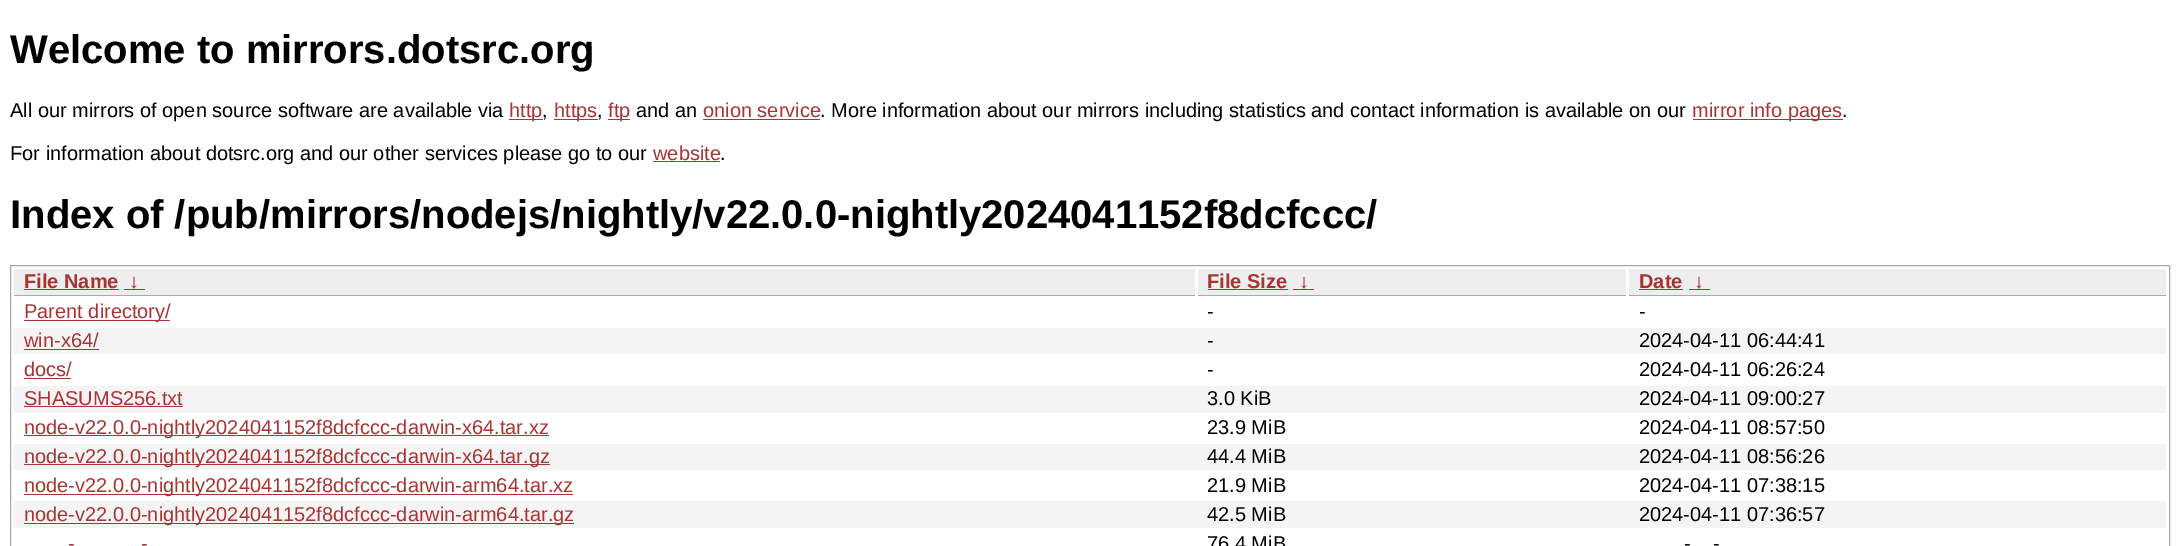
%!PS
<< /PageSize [2179 546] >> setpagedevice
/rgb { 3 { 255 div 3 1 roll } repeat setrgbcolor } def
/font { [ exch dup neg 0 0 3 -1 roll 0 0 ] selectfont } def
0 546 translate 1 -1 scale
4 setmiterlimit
255 255 255 rgb
0 0 2179 546 rectfill
[
  [509 119 34 1 170 51 51]
  [554 119 44 1 170 51 51]
  [608 119 22 1 170 51 51]
  [703 119 117 1 170 51 51]
  [1693 119 150 1 170 51 51]
  [653 161 67 1 170 51 51]
] { aload pop rgb rectfill } forall
170 170 170 rgb
10.5 265.5 2159 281 rectstroke
[
  [14 269 1181 26 238 238 238]
  [14 295 1181 1 170 170 170]
  [24 289 95 1 170 51 51]
  [124 289 21 1 170 51 51]
  [1198 269 428 26 238 238 238]
  [1198 295 428 1 170 170 170]
  [1208 289 80 1 170 51 51]
  [1293 289 21 1 170 51 51]
  [1629 269 537 26 238 238 238]
  [1629 295 537 1 170 170 170]
  [1639 289 44 1 170 51 51]
  [1689 289 21 1 170 51 51]
  [24 320 146 1 170 51 51]
  [14 328 2152 26 244 244 244]
  [24 349 75 1 170 51 51]
  [24 378 47 1 170 51 51]
  [14 386 2152 27 244 244 244]
  [24 406 159 1 170 51 51]
  [24 435 525 1 170 51 51]
  [14 444 2152 26 244 244 244]
  [24 464 526 1 170 51 51]
  [24 494 549 1 170 51 51]
  [14 501 2152 27 244 244 244]
  [24 523 550 1 170 51 51]
] { aload pop rgb rectfill } forall
/LiberationSans-Bold 40 font
0 0 0 rgb
10 63 moveto (Welcome to mirrors.dotsrc.org) show
/LiberationSans-Regular 20 font
10 117 moveto (All our mirrors of open source software are available via) show
170 51 51 rgb
509 117 moveto (http) show
0 0 0 rgb
542 117 moveto (,) show
170 51 51 rgb
554 117 moveto (https) show
0 0 0 rgb
597 117 moveto (,) show
170 51 51 rgb
608 117 moveto (ftp) show
0 0 0 rgb
636 117 moveto (and an) show
170 51 51 rgb
703 117 moveto (onion service) show
0 0 0 rgb
820 117 moveto (. More information about our mirrors including statistics and contact information is available on our) show
170 51 51 rgb
1692 117 moveto (mirror info pages) show
0 0 0 rgb
1842 117 moveto (.) show
10 160 moveto (For information about dotsrc.org and our other services please go to our) show
170 51 51 rgb
653 160 moveto (website) show
0 0 0 rgb
720 160 moveto (.) show
/LiberationSans-Bold 40 font
10 228 moveto (Index of /pub/mirrors/nodejs/nightly/v22.0.0-nightly2024041152f8dcfccc/) show
/LiberationSans-Bold 20 font
170 51 51 rgb
[
  [(File Name) 24 288]
  [(↓) 129 288]
  [(File Size) 1207 288]
  [(↓) 1299 288]
  [(Date) 1639 288]
  [(↓) 1694 288]
] { aload pop moveto show } forall
/LiberationSans-Regular 20 font
24 318 moveto (Parent directory/) show
0 0 0 rgb
1207 318 moveto (-) show
1639 318 moveto (-) show
170 51 51 rgb
24 347 moveto (win-x64/) show
0 0 0 rgb
1207 347 moveto (-) show
1639 347 moveto (2024-04-11 06:44:41) show
170 51 51 rgb
24 376 moveto (docs/) show
0 0 0 rgb
1207 376 moveto (-) show
1639 376 moveto (2024-04-11 06:26:24) show
170 51 51 rgb
24 405 moveto (SHASUMS256.txt) show
0 0 0 rgb
1207 405 moveto (3.0 KiB) show
1639 405 moveto (2024-04-11 09:00:27) show
170 51 51 rgb
24 434 moveto (node-v22.0.0-nightly2024041152f8dcfccc-darwin-x64.tar.xz) show
0 0 0 rgb
1207 434 moveto (23.9 MiB) show
1639 434 moveto (2024-04-11 08:57:50) show
170 51 51 rgb
24 463 moveto (node-v22.0.0-nightly2024041152f8dcfccc-darwin-x64.tar.gz) show
0 0 0 rgb
1207 463 moveto (44.4 MiB) show
1639 463 moveto (2024-04-11 08:56:26) show
170 51 51 rgb
24 492 moveto (node-v22.0.0-nightly2024041152f8dcfccc-darwin-arm64.tar.xz) show
0 0 0 rgb
1207 492 moveto (21.9 MiB) show
1639 492 moveto (2024-04-11 07:38:15) show
170 51 51 rgb
24 521 moveto (node-v22.0.0-nightly2024041152f8dcfccc-darwin-arm64.tar.gz) show
0 0 0 rgb
1207 521 moveto (42.5 MiB) show
1639 521 moveto (2024-04-11 07:36:57) show
170 51 51 rgb
68 550 moveto (-) show
141 550 moveto (-) show
0 0 0 rgb
[
  [(76.4 MiB) 1207 550]
  [(-) 1684 550]
  [(-) 1713 550]
] { aload pop moveto show } forall
showpage
